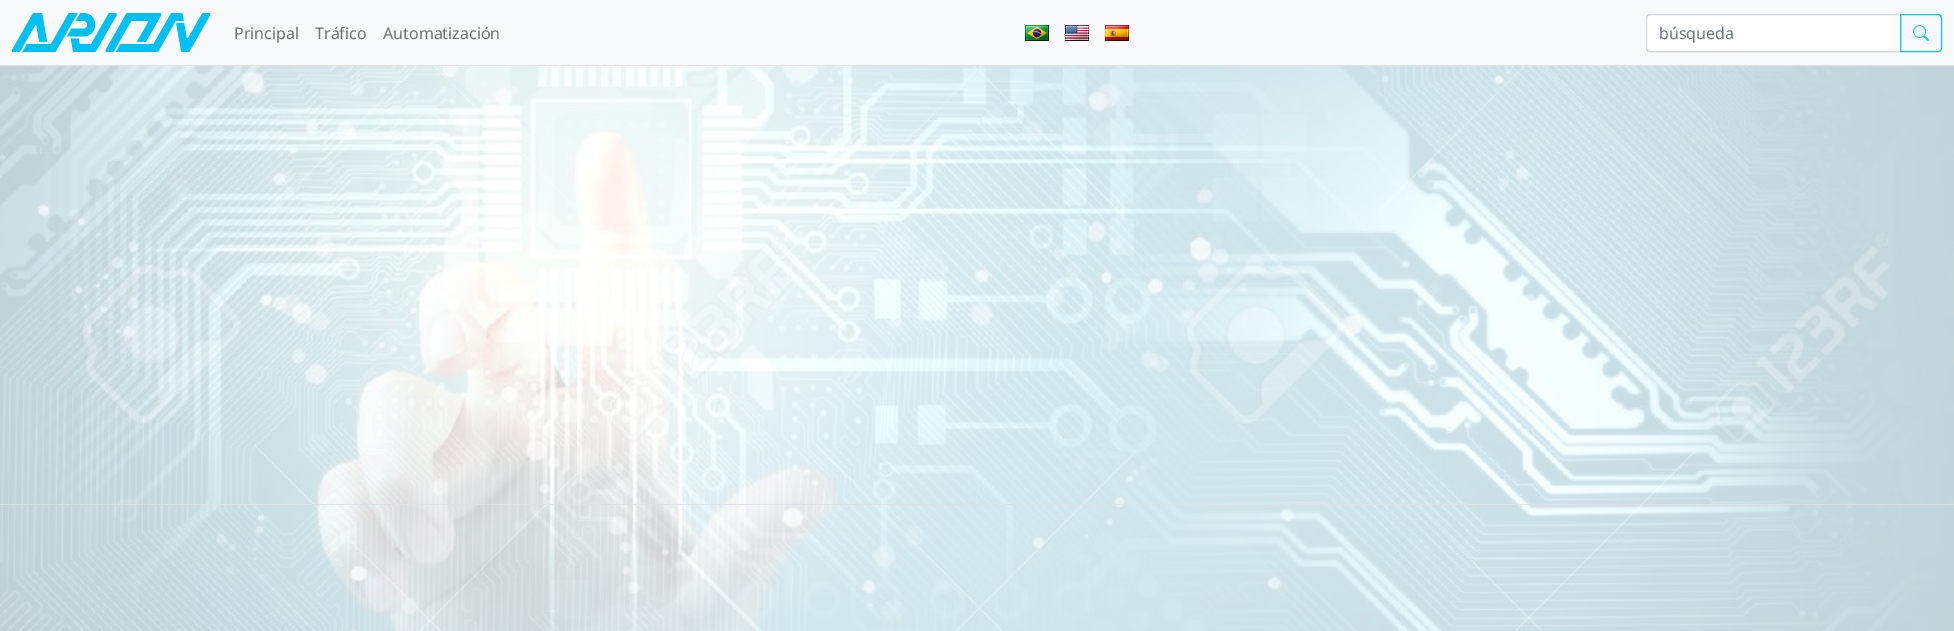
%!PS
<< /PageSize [1954 631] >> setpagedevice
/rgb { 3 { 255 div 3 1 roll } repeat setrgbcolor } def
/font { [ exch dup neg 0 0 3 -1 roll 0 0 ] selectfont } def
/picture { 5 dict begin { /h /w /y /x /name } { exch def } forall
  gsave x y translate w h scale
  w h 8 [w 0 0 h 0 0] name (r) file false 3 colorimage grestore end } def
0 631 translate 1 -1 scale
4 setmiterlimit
255 255 255 rgb
0 0 1954 631 rectfill
248 249 250 rgb
0 0 1954 65 rectfill
222 226 230 rgb
0 65 1954 1 rectfill
(img/1.rgb) 12 13 198 39 picture
(img/2.rgb) 1025 25 24 16 picture
(img/3.rgb) 1065 25 24 16 picture
(img/4.rgb) 1105 25 24 16 picture
255 255 255 rgb
1650 14.5 moveto 1900.5 14.5 lineto 1900.5 51.5 lineto 1650 51.5 lineto 1648 51.5 1646.5 50 1646.5 48 curveto 1646.5 18 lineto 1646.5 16 1648 14.5 1650 14.5 curveto closepath gsave fill grestore
206 212 218 rgb
stroke
13 202 240 rgb
1900.5 14.5 moveto 1938 14.5 lineto 1940 14.5 1941.5 16 1941.5 18 curveto 1941.5 48 lineto 1941.5 50 1940 51.5 1938 51.5 curveto 1900.5 51.5 lineto closepath stroke
(img/5.rgb) 1913 25 16 16 picture
(img/6.rgb) 0 66 1954 565 picture
222 226 230 rgb
0 504 1954 1 rectfill
/NotoSans-Regular 16 font
112 112 113 rgb
[
  [(Principal) 234 39]
  [(Tráfico) 315 39]
  [(Automatización) 383 39]
] { aload pop moveto show } forall
108 117 125 rgb
1659 39 moveto (búsqueda) show
showpage
